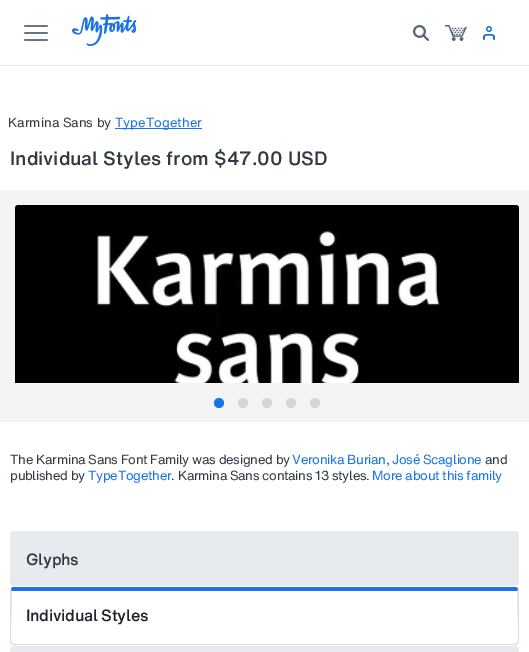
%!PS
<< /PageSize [529 652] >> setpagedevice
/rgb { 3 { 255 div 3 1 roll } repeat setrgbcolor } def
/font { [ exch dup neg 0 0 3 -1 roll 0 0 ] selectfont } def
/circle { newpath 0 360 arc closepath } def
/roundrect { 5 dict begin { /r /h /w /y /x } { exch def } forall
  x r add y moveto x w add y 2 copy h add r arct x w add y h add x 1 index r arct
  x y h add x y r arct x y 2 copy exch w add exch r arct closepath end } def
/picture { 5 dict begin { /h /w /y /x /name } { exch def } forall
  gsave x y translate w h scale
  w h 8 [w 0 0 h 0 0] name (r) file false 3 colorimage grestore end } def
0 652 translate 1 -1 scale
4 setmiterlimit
255 255 255 rgb
0 0 529 652 rectfill
231 234 238 rgb
0 65 529 1 rectfill
(img/1.rgb) 24 25 24 16 picture
(img/2.rgb) 72 14 65 32 picture
(img/3.rgb) 413 25 16 16 picture
(img/4.rgb) 445 25 22 16 picture
(img/5.rgb) 483 26 12 14 picture
26 115 232 rgb
115 128 87 1 rectfill
244 244 244 rgb
0 190 529 232 rectfill
(img/6.rgb) 15 205 504 178 picture
26 115 232 rgb
219 403 5 circle fill
214 214 214 rgb
243 403 5 circle fill
267 403 5 circle fill
291 403 5 circle fill
315 403 5 circle fill
231 234 238 rgb
10 531 509 55 4 roundrect fill
26 115 232 rgb
14 587 moveto 13 587 11 588 11 589 curveto 11 591 lineto 518 591 lineto 518 589 lineto 518 588 516 587 515 587 curveto closepath fill
221 221 221 rgb
519 641 moveto 519 591 lineto 518 589 lineto 516 597 520 641 517 643 curveto 518 644 lineto closepath fill
14 645 moveto 515 645 lineto 516 645 517 644 518 644 curveto 517 643 lineto 515 644 lineto 14 644 lineto 12 643 lineto 11 644 lineto closepath fill
10 591 moveto 10 641 lineto 11 644 lineto 12 643 lineto 9 641 13 597 11 589 curveto closepath fill
231 234 238 rgb
10 646 509 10 4 roundrect fill
/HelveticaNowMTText-Regular 13 font
49 57 69 rgb
8 127 moveto (Karmina Sans by) show
26 115 232 rgb
115 127 moveto (TypeTogether) show
/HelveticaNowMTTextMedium-Medium 19 font
49 57 69 rgb
10 165 moveto (Individual Styles from $47.00 USD) show
/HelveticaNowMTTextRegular-Regular 13 font
10 464 moveto -0.3 0 (The Karmina Sans Font Family was designed by) ashow
26 115 232 rgb
292 464 moveto -0.3 0 (Veronika Burian) ashow
49 57 69 rgb
386 464 moveto -0.3 0 (,) ashow
26 115 232 rgb
392 464 moveto -0.3 0 (José Scaglione) ashow
49 57 69 rgb
485 464 moveto -0.3 0 (and) ashow
10 480 moveto -0.3 0 (published by) ashow
26 115 232 rgb
88 480 moveto -0.3 0 (TypeTogether) ashow
49 57 69 rgb
171 480 moveto -0.3 0 (. Karmina Sans contains 13 styles.) ashow
26 115 232 rgb
372 480 moveto -0.3 0 (More about this family) ashow
/HelveticaNowMTTextMedium-Medium 16 font
49 57 69 rgb
26 565 moveto -0.3 0 (Glyphs) ashow
30 36 44 rgb
26 621 moveto -0.3 0 (Individual Styles) ashow
showpage
